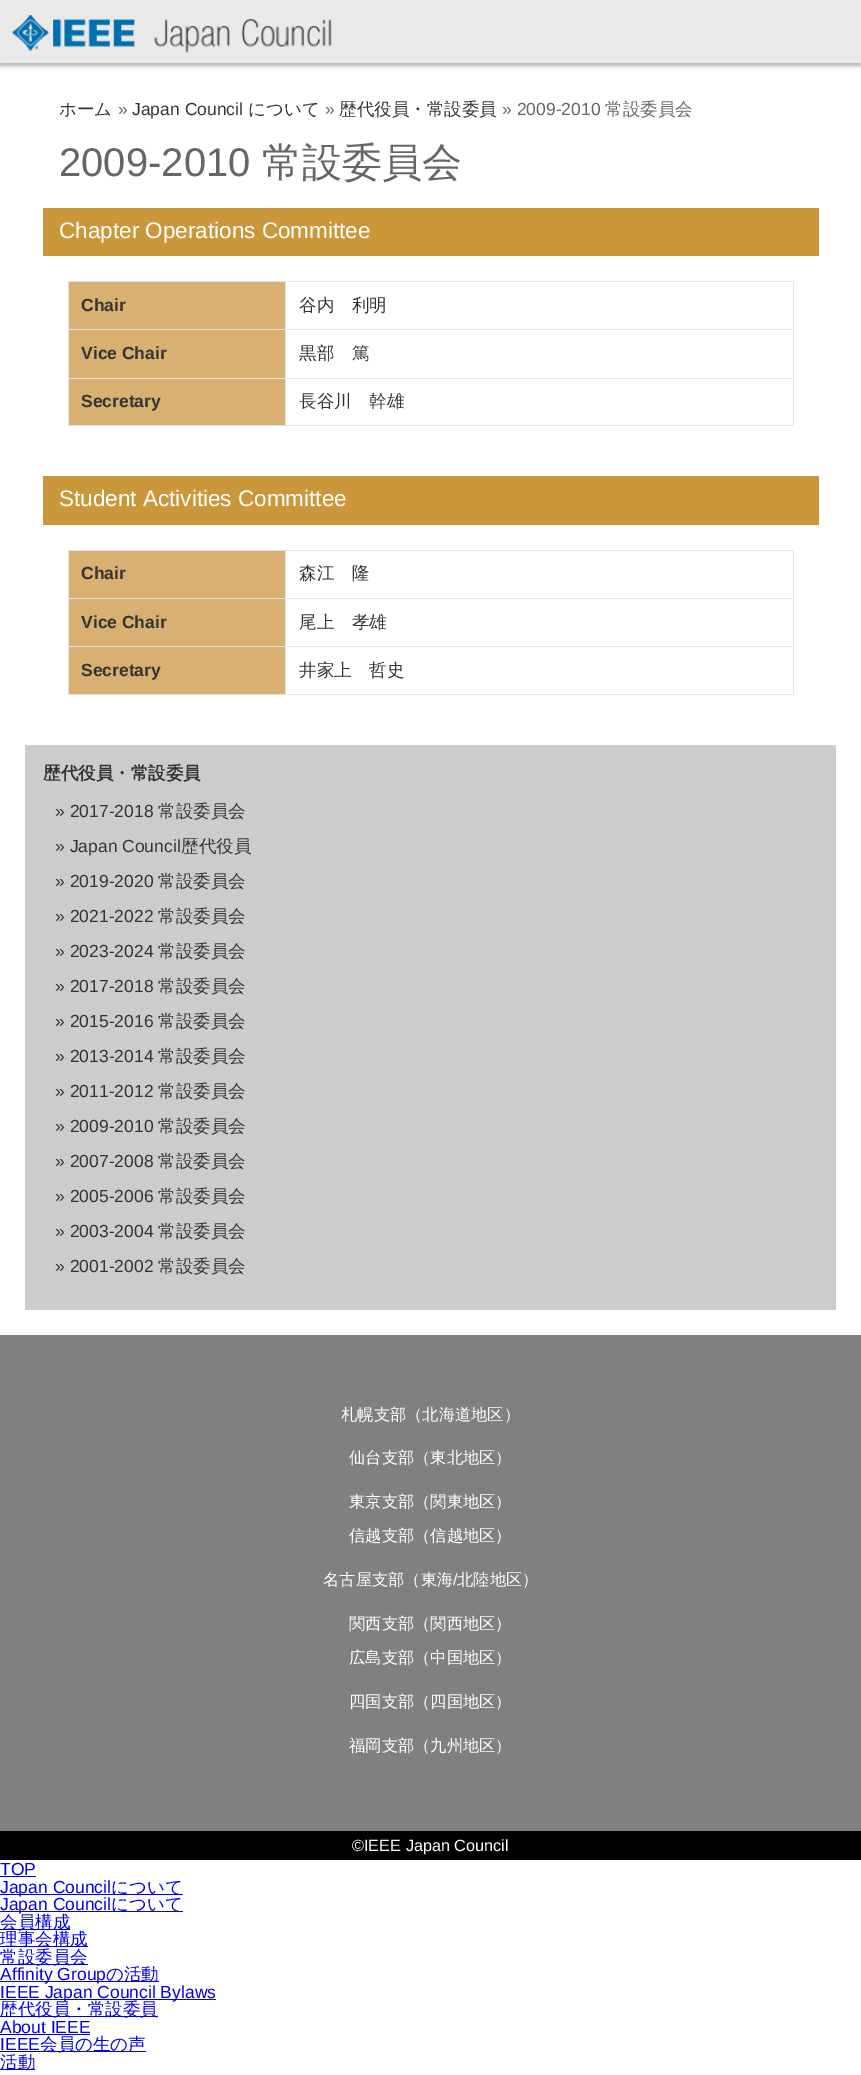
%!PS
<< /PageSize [861 2075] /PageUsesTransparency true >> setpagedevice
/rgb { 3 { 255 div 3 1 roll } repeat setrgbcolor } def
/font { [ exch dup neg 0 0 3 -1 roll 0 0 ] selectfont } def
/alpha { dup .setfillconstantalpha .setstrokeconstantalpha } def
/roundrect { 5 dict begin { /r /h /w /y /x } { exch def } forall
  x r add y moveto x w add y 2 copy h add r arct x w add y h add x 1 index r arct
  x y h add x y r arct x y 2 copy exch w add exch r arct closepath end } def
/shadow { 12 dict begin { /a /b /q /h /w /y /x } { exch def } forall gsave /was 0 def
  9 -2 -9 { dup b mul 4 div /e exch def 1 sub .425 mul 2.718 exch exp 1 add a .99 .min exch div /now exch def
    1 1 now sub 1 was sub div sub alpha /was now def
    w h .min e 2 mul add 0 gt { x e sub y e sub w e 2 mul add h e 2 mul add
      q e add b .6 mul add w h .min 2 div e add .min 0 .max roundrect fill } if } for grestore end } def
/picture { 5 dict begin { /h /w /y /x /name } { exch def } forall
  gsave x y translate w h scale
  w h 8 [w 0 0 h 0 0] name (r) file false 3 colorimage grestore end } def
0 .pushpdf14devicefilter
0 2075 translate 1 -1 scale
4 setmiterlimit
255 255 255 rgb
0 0 861 2075 rectfill
0 0 0 rgb
0 4 861 62 0 2 0.3 shadow
233 233 233 rgb
0 0 861 63 rectfill
(img/1.rgb) 12 15 320 38 picture
[
  [43 208 776 48 203 151 59]
  [68 281 726 1 229 229 229]
  [793 281 1 145 229 229 229]
  [68 425 726 1 229 229 229]
  [68 281 1 145 229 229 229]
  [69 282 216 47 216 176 113]
  [285 329 509 1 229 229 229]
  [285 378 509 1 229 229 229]
  [285 378 1 48 229 229 229]
  [68 378 218 1 229 229 229]
  [285 329 1 50 229 229 229]
  [68 329 218 1 229 229 229]
  [285 281 1 49 229 229 229]
  [69 330 216 48 216 176 113]
  [69 379 216 46 216 176 113]
  [43 476 776 49 203 151 59]
  [68 550 726 1 229 229 229]
  [793 550 1 145 229 229 229]
  [68 694 726 1 229 229 229]
  [68 550 1 145 229 229 229]
  [69 551 216 47 216 176 113]
  [285 598 509 1 229 229 229]
  [285 646 509 1 229 229 229]
  [285 646 1 49 229 229 229]
  [68 646 218 1 229 229 229]
  [285 598 1 50 229 229 229]
  [68 598 218 1 229 229 229]
  [285 550 1 49 229 229 229]
  [69 599 216 47 216 176 113]
  [69 647 216 47 216 176 113]
  [25 745 811 565 204 204 204]
  [0 1335 861 496 128 128 128]
  [0 1831 861 29 0 0 0]
  [0 1876 36 1 0 0 238]
  [0 1894 183 1 0 0 238]
  [0 1911 183 1 0 0 238]
  [0 1929 70 1 0 0 238]
  [0 1946 88 1 0 0 238]
  [0 1964 88 1 0 0 238]
  [0 1981 159 1 0 0 238]
  [0 1999 216 1 0 0 238]
  [0 2016 158 1 0 0 238]
  [0 2034 90 1 0 0 238]
  [0 2051 146 1 0 0 238]
  [0 2069 35 1 0 0 238]
] { aload pop rgb rectfill } forall
/WenQuanYiZenHei-Medium 17.5 font
51 51 51 rgb
59 115 moveto (ホーム) show
/LiberationSans-Regular 17.5 font
102 102 102 rgb
118 115 moveto (») show
51 51 51 rgb
132 115 moveto (Japan Council) show
/WenQuanYiZenHei-Medium 17.5 font
248 115 moveto (について) show
/LiberationSans-Regular 17.5 font
102 102 102 rgb
325 115 moveto (») show
/WenQuanYiZenHei-Medium 17.5 font
51 51 51 rgb
339 115 moveto (歴代役員・常設委員) show
/LiberationSans-Regular 17.5 font
102 102 102 rgb
502 115 moveto (» 2009-2010) show
/WenQuanYiZenHei-Medium 17.5 font
605 115 moveto (常設委員会) show
/LiberationSans-Regular 40 font
59 176 moveto (2009-2010) show
/WenQuanYiZenHei-Medium 40 font
262 176 moveto (常設委員会) show
/LiberationSans-Regular 22.5 font
255 255 255 rgb
59 238 moveto (Chapter Operations Committee) show
/LiberationSans-Bold 17.5 font
51 51 51 rgb
81 311 moveto (Chair) show
/WenQuanYiZenHei-Medium 17.5 font
299 311 moveto (谷内　利明) show
/LiberationSans-Bold 17.5 font
81 359 moveto (Vice Chair) show
/WenQuanYiZenHei-Medium 17.5 font
299 359 moveto (黒部　篤) show
/LiberationSans-Bold 17.5 font
81 407 moveto (Secretary) show
/WenQuanYiZenHei-Medium 17.5 font
299 407 moveto (長谷川　幹雄) show
/LiberationSans-Regular 22.5 font
255 255 255 rgb
59 506 moveto (Student Activities Committee) show
/LiberationSans-Bold 17.5 font
51 51 51 rgb
81 579 moveto (Chair) show
/WenQuanYiZenHei-Medium 17.5 font
299 579 moveto (森江　隆) show
/LiberationSans-Bold 17.5 font
81 628 moveto (Vice Chair) show
/WenQuanYiZenHei-Medium 17.5 font
299 628 moveto (尾上　孝雄) show
/LiberationSans-Bold 17.5 font
81 676 moveto (Secretary) show
/WenQuanYiZenHei-Medium 17.5 font
299 676 moveto (井家上　哲史) show
/WenQuanYiZenHei-Bold 17.5 font
43 779 moveto (歴代役員・常設委員) show
/LiberationSans-Regular 17.5 font
55 817 moveto (» 2017-2018) show
/WenQuanYiZenHei-Medium 17.5 font
158 817 moveto (常設委員会) show
/LiberationSans-Regular 17.5 font
55 852 moveto (» Japan Council) show
/WenQuanYiZenHei-Medium 17.5 font
181 852 moveto (歴代役員) show
/LiberationSans-Regular 17.5 font
55 887 moveto (» 2019-2020) show
/WenQuanYiZenHei-Medium 17.5 font
158 887 moveto (常設委員会) show
/LiberationSans-Regular 17.5 font
55 922 moveto (» 2021-2022) show
/WenQuanYiZenHei-Medium 17.5 font
158 922 moveto (常設委員会) show
/LiberationSans-Regular 17.5 font
55 957 moveto (» 2023-2024) show
/WenQuanYiZenHei-Medium 17.5 font
158 957 moveto (常設委員会) show
/LiberationSans-Regular 17.5 font
55 992 moveto (» 2017-2018) show
/WenQuanYiZenHei-Medium 17.5 font
158 992 moveto (常設委員会) show
/LiberationSans-Regular 17.5 font
55 1027 moveto (» 2015-2016) show
/WenQuanYiZenHei-Medium 17.5 font
158 1027 moveto (常設委員会) show
/LiberationSans-Regular 17.5 font
55 1062 moveto (» 2013-2014) show
/WenQuanYiZenHei-Medium 17.5 font
158 1062 moveto (常設委員会) show
/LiberationSans-Regular 17.5 font
55 1097 moveto (» 2011-2012) show
/WenQuanYiZenHei-Medium 17.5 font
158 1097 moveto (常設委員会) show
/LiberationSans-Regular 17.5 font
55 1132 moveto (» 2009-2010) show
/WenQuanYiZenHei-Medium 17.5 font
158 1132 moveto (常設委員会) show
/LiberationSans-Regular 17.5 font
55 1167 moveto (» 2007-2008) show
/WenQuanYiZenHei-Medium 17.5 font
158 1167 moveto (常設委員会) show
/LiberationSans-Regular 17.5 font
55 1202 moveto (» 2005-2006) show
/WenQuanYiZenHei-Medium 17.5 font
158 1202 moveto (常設委員会) show
/LiberationSans-Regular 17.5 font
55 1237 moveto (» 2003-2004) show
/WenQuanYiZenHei-Medium 17.5 font
158 1237 moveto (常設委員会) show
/LiberationSans-Regular 17.5 font
55 1272 moveto (» 2001-2002) show
/WenQuanYiZenHei-Medium 17.5 font
158 1272 moveto (常設委員会) show
/WenQuanYiZenHei-Medium 16.25 font
255 255 255 rgb
[
  [(札幌支部（北海道地区）) 341 1420]
  [(仙台支部（東北地区）) 349 1463]
  [(東京支部（関東地区）) 349 1507]
  [(信越支部（信越地区）) 349 1541]
  [(名古屋支部（東海) 323 1585]
] { aload pop moveto show } forall
/LiberationSans-Regular 16.25 font
453 1585 moveto (/) show
/WenQuanYiZenHei-Medium 16.25 font
[
  [(北陸地区）) 457 1585]
  [(関西支部（関西地区）) 349 1629]
  [(広島支部（中国地区）) 349 1663]
  [(四国支部（四国地区）) 349 1707]
  [(福岡支部（九州地区）) 349 1751]
] { aload pop moveto show } forall
/LiberationSans-Regular 16.25 font
352 1851 moveto (©IEEE Japan Council) show
/LiberationSans-Regular 17.5 font
0 0 238 rgb
0 1875 moveto (TOP) show
0 1893 moveto (Japan Council) show
/WenQuanYiZenHei-Medium 17.5 font
111 1893 moveto (について) show
/LiberationSans-Regular 17.5 font
0 1910 moveto (Japan Council) show
/WenQuanYiZenHei-Medium 17.5 font
[
  [(について) 111 1910]
  [(会員構成) 0 1928]
  [(理事会構成) 0 1945]
  [(常設委員会) 0 1963]
] { aload pop moveto show } forall
/LiberationSans-Regular 17.5 font
0 1980 moveto (Affinity Group) show
/WenQuanYiZenHei-Medium 17.5 font
106 1980 moveto (の活動) show
/LiberationSans-Regular 17.5 font
0 1998 moveto (IEEE Japan Council Bylaws) show
/WenQuanYiZenHei-Medium 17.5 font
0 2015 moveto (歴代役員・常設委員) show
/LiberationSans-Regular 17.5 font
0 2033 moveto (About IEEE) show
0 2050 moveto (IEEE) show
/WenQuanYiZenHei-Medium 17.5 font
40 2050 moveto (会員の生の声) show
0 2068 moveto (活動) show
.poppdf14devicefilter showpage
